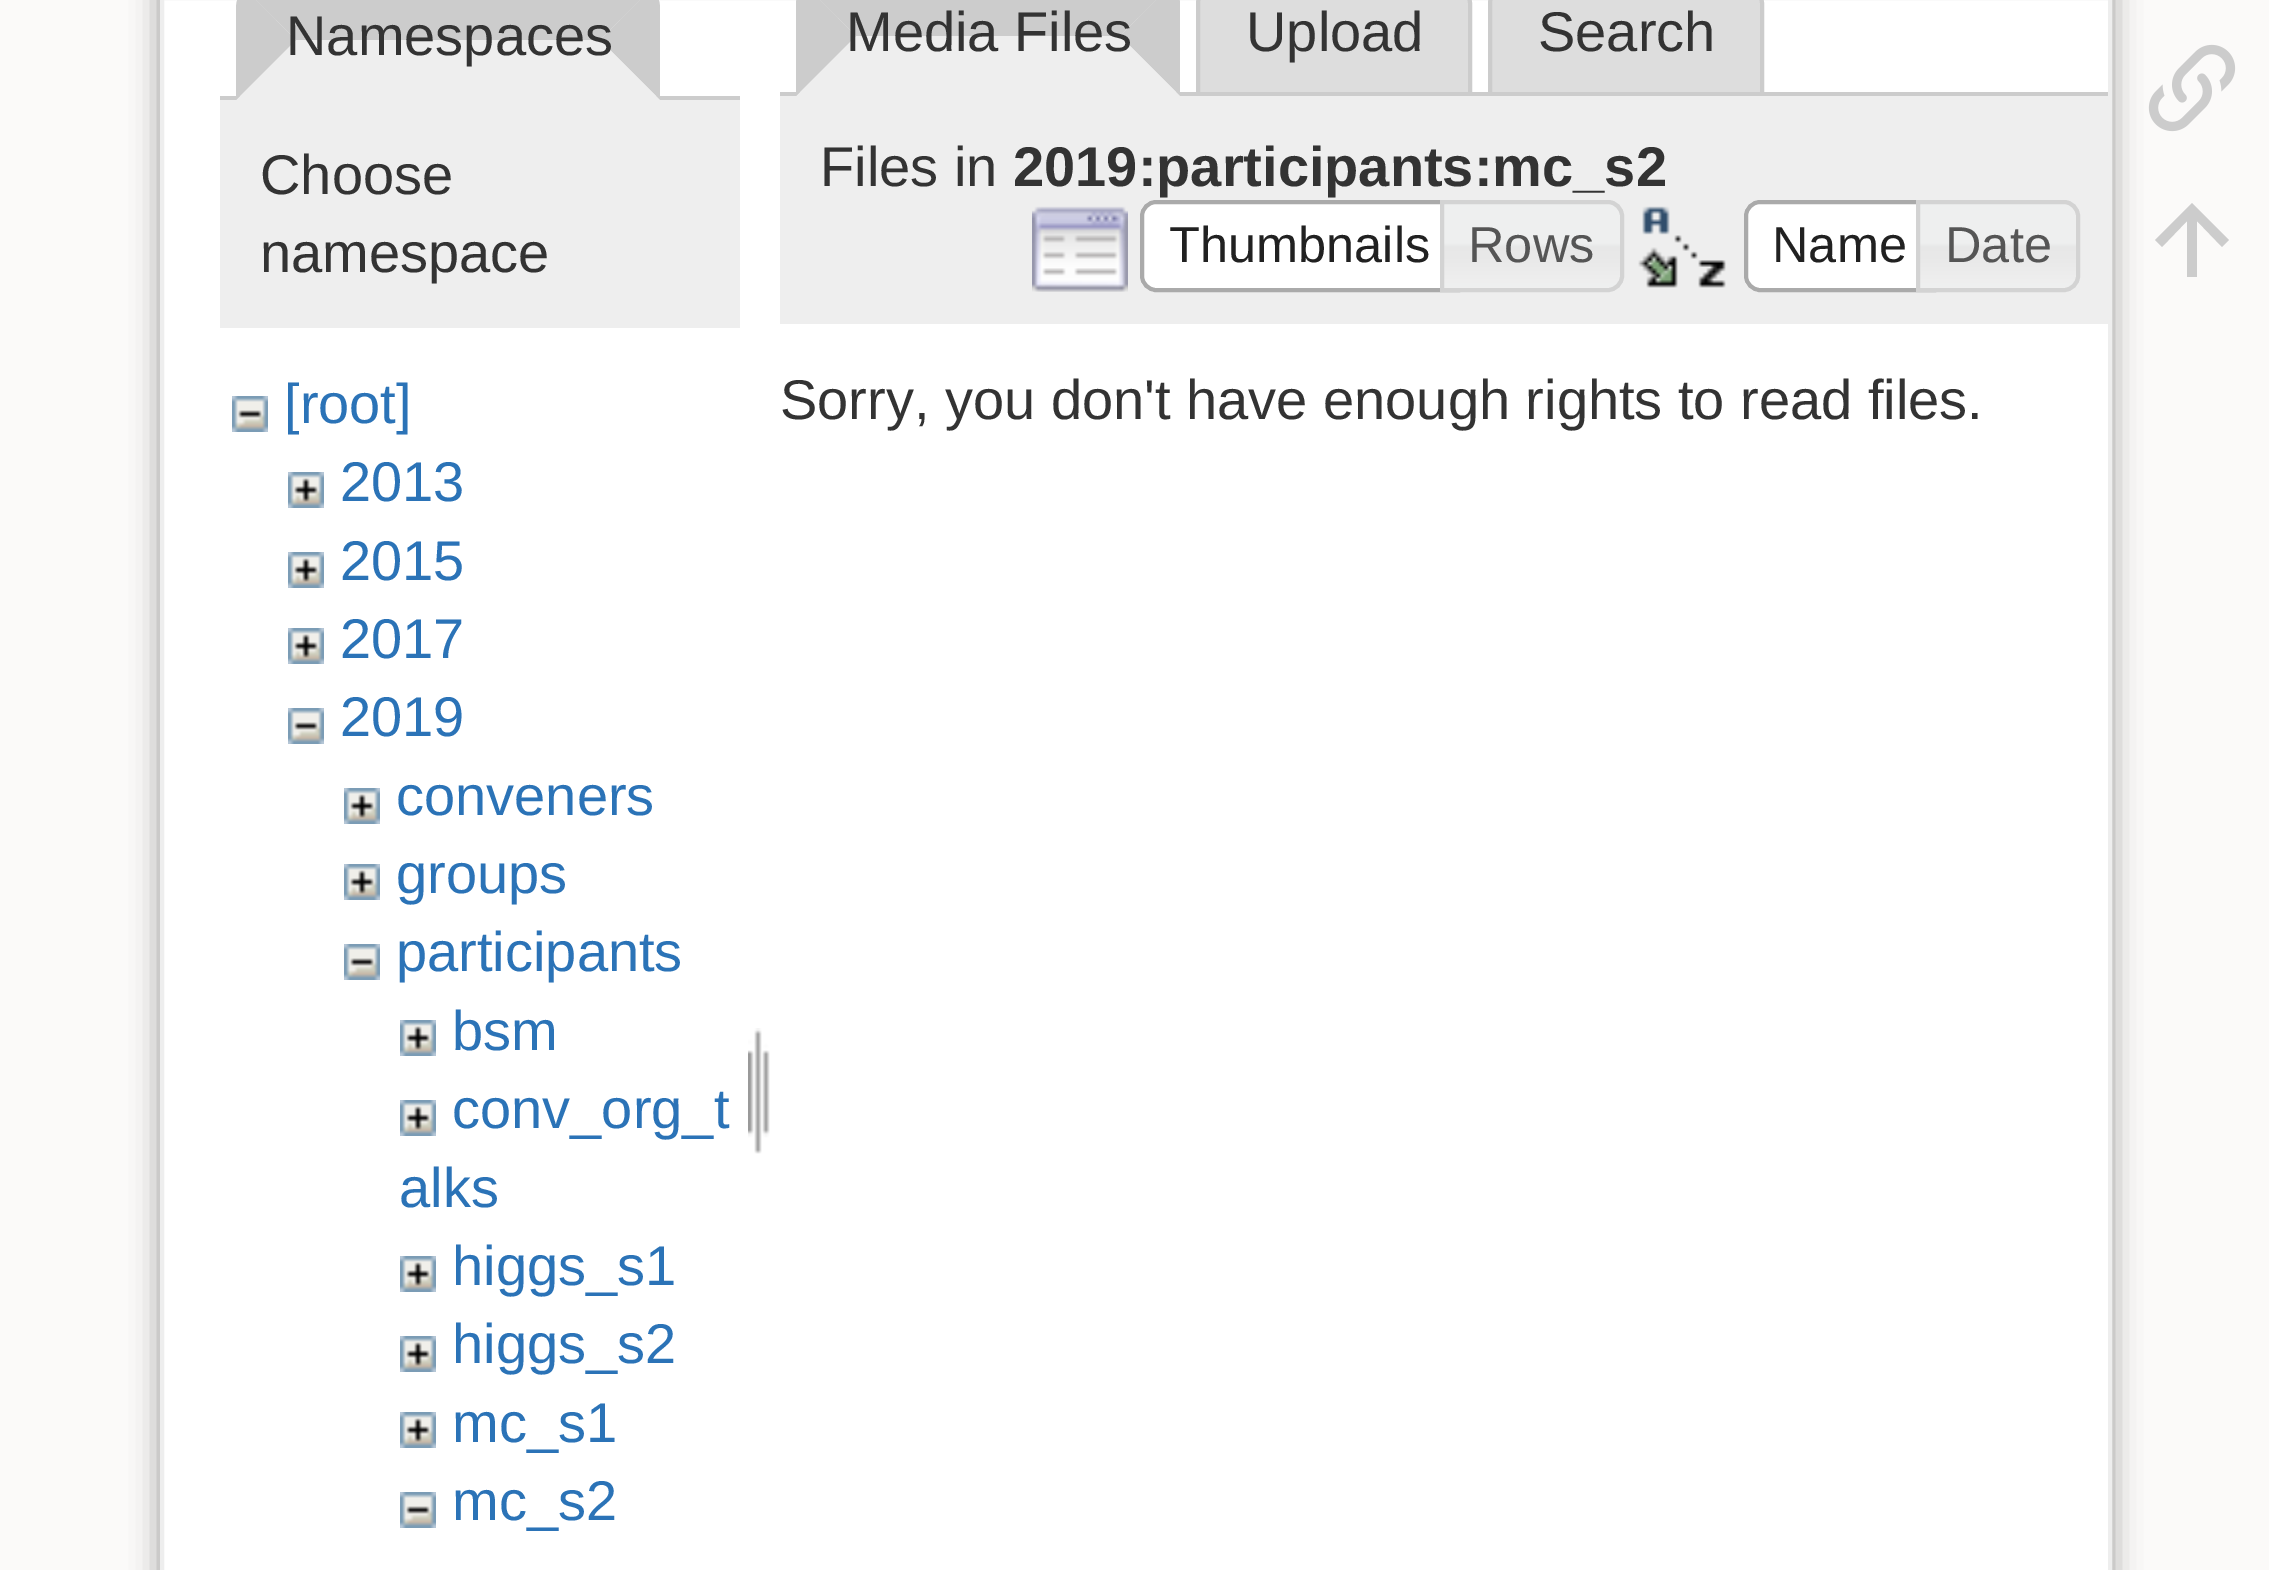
%!PS
<< /PageSize [2269 1570] /PageUsesTransparency true >> setpagedevice
/rgb { 3 { 255 div 3 1 roll } repeat setrgbcolor } def
/font { [ exch dup neg 0 0 3 -1 roll 0 0 ] selectfont } def
/alpha { dup .setfillconstantalpha .setstrokeconstantalpha } def
/roundrect { 5 dict begin { /r /h /w /y /x } { exch def } forall
  x r add y moveto x w add y 2 copy h add r arct x w add y h add x 1 index r arct
  x y h add x y r arct x y 2 copy exch w add exch r arct closepath end } def
/shadow { 12 dict begin { /a /b /q /h /w /y /x } { exch def } forall gsave /was 0 def
  9 -2 -9 { dup b mul 4 div /e exch def 1 sub .425 mul 2.718 exch exp 1 add a .99 .min exch div /now exch def
    1 1 now sub 1 was sub div sub alpha /was now def
    w h .min e 2 mul add 0 gt { x e sub y e sub w e 2 mul add h e 2 mul add
      q e add b .6 mul add w h .min 2 div e add .min 0 .max roundrect fill } if } for grestore end } def
/picture { 5 dict begin { /h /w /y /x /name } { exch def } forall
  gsave x y translate w h scale
  w h 8 [w 0 0 h 0 0] name (r) file false 3 colorimage grestore end } def
0 .pushpdf14devicefilter
0 1570 translate 1 -1 scale
4 setmiterlimit
251 250 249 rgb
0 0 2269 1570 rectfill
153 153 153 rgb
160 -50 1952 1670 8 14 1 shadow
255 255 255 rgb
162 -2 moveto 2110 -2 lineto 2110 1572 lineto 162 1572 lineto closepath gsave fill grestore
238 238 238 rgb
4 setlinewidth
stroke
204 204 204 rgb
264 -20 moveto 632 -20 lineto 640 -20 646 -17 652 -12 curveto 600 40 lineto 296 40 lineto 244 -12 lineto 250 -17 256 -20 264 -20 curveto closepath fill
220 96 520 4 rectfill
652 -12 moveto 600 40 lineto 660 100 lineto 660 8 lineto 660 0 657 -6 652 -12 curveto closepath fill
238 238 238 rgb
660 100 moveto 600 40 lineto 296 40 lineto 236 100 lineto closepath fill
204 204 204 rgb
236 100 moveto 236 8 lineto 236 0 239 -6 244 -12 curveto 296 40 lineto closepath fill
238 238 238 rgb
220 100 520 228 rectfill
(img/1.rgb) 232 396 36 36 picture
(img/2.rgb) 288 472 36 36 picture
(img/2.rgb) 288 552 36 36 picture
(img/2.rgb) 288 628 36 36 picture
(img/1.rgb) 288 708 36 36 picture
(img/2.rgb) 344 788 36 36 picture
(img/2.rgb) 344 864 36 36 picture
(img/1.rgb) 344 944 36 36 picture
(img/2.rgb) 400 1020 36 36 picture
(img/2.rgb) 400 1100 36 36 picture
(img/2.rgb) 400 1256 36 36 picture
(img/2.rgb) 400 1336 36 36 picture
(img/2.rgb) 400 1412 36 36 picture
(img/1.rgb) 400 1492 36 36 picture
(img/3.rgb) 748 1028 22 126 picture
204 204 204 rgb
824 -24 moveto 1152 -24 lineto 1160 -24 1166 -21 1172 -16 curveto 1120 36 lineto 856 36 lineto 804 -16 lineto 810 -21 816 -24 824 -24 curveto closepath fill
221 221 221 rgb
1224 -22 moveto 1444 -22 lineto 1458.5 -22 1470 -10.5 1470 4 curveto 1470 94 lineto 1198 94 lineto 1198 4 lineto 1198 -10.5 1209.5 -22 1224 -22 curveto closepath gsave fill grestore
204 204 204 rgb
stroke
221 221 221 rgb
1516 -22 moveto 1736 -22 lineto 1750.5 -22 1762 -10.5 1762 4 curveto 1762 94 lineto 1490 94 lineto 1490 4 lineto 1490 -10.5 1501.5 -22 1516 -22 curveto closepath gsave fill grestore
204 204 204 rgb
stroke
780 92 1328 4 rectfill
1172 -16 moveto 1120 36 lineto 1180 96 lineto 1180 4 lineto 1180 -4 1177 -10 1172 -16 curveto closepath fill
238 238 238 rgb
1180 96 moveto 1120 36 lineto 856 36 lineto 796 96 lineto closepath fill
204 204 204 rgb
796 96 moveto 796 4 lineto 796 -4 799 -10 804 -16 curveto 856 36 lineto closepath fill
238 238 238 rgb
780 96 1328 228 rectfill
(img/4.rgb) 1032 206 96 86 picture
255 255 255 rgb
1156 200 moveto 1460 200 lineto 1460 292 lineto 1156 292 lineto 1147 292 1140 285 1140 276 curveto 1140 216 lineto 1140 207 1147 200 1156 200 curveto closepath fill
(img/5.rgb) 1142 200 11 92 picture
170 170 170 rgb
1156 202 moveto 1458 202 lineto 1458 290 lineto 1156 290 lineto 1148.5 290 1142 283.5 1142 276 curveto 1142 216 lineto 1142 208.5 1148.5 202 1156 202 curveto closepath stroke
(img/6.rgb) 1444 200 180 92 picture
211 211 211 rgb
1442 202 moveto 1608 202 lineto 1615.5 202 1622 208.5 1622 216 curveto 1622 276 lineto 1622 283.5 1615.5 290 1608 290 curveto 1442 290 lineto closepath stroke
(img/7.rgb) 1638 206 88 82 picture
255 255 255 rgb
1760 200 moveto 1936 200 lineto 1936 292 lineto 1760 292 lineto 1751 292 1744 285 1744 276 curveto 1744 216 lineto 1744 207 1751 200 1760 200 curveto closepath fill
(img/5.rgb) 1746 200 11 92 picture
170 170 170 rgb
1760 202 moveto 1934 202 lineto 1934 290 lineto 1760 290 lineto 1752.5 290 1746 283.5 1746 276 curveto 1746 216 lineto 1746 208.5 1752.5 202 1760 202 curveto closepath stroke
(img/8.rgb) 1920 200 160 92 picture
211 211 211 rgb
1918 202 moveto 2064 202 lineto 2071.5 202 2078 208.5 2078 216 curveto 2078 276 lineto 2078 283.5 2071.5 290 2064 290 curveto 1918 290 lineto closepath stroke
(img/9.rgb) 2148 44 88 88 picture
204 204 204 rgb
2197 277 moveto 2187 277 lineto 2187 221 lineto 2162 247 lineto 2155 240 lineto 2192 203 lineto 2229 240 lineto 2222 247 lineto 2197 221 lineto closepath fill
/LiberationSans-Regular 56 font
51 51 51 rgb
[
  [(Namespaces) 286 55]
  [(Choose) 260 194]
  [(namespace) 260 272]
] { aload pop moveto show } forall
43 115 183 rgb
[
  [([root]) 284 423]
  [(2013) 340 501]
  [(2015) 340 580]
  [(2017) 340 658]
  [(2019) 340 736]
  [(conveners) 396 815]
  [(groups) 396 893]
  [(participants) 396 971]
  [(bsm) 452 1050]
  [(conv_org_t) 452 1128]
  [(alks) 399 1207]
  [(higgs_s1) 452 1285]
  [(higgs_s2) 452 1363]
  [(mc_s1) 452 1442]
  [(mc_s2) 452 1520]
] { aload pop moveto show } forall
51 51 51 rgb
[
  [(Media Files) 846 51]
  [(Upload) 1246 51]
  [(Search) 1538 51]
  [(Files in) 820 186]
] { aload pop moveto show } forall
/LiberationSans-Bold 56 font
1013 186 moveto (2019:participants:mc_s2) show
/LiberationSans-Regular 50.5 font
33 33 33 rgb
1169 262 moveto (Thumbnails) show
85 85 85 rgb
1468 262 moveto (Rows) show
33 33 33 rgb
1772 262 moveto (Name) show
85 85 85 rgb
1945 262 moveto (Date) show
/LiberationSans-Regular 56 font
51 51 51 rgb
780 419 moveto (Sorry, you don't have enough rights to read files.) show
.poppdf14devicefilter showpage
